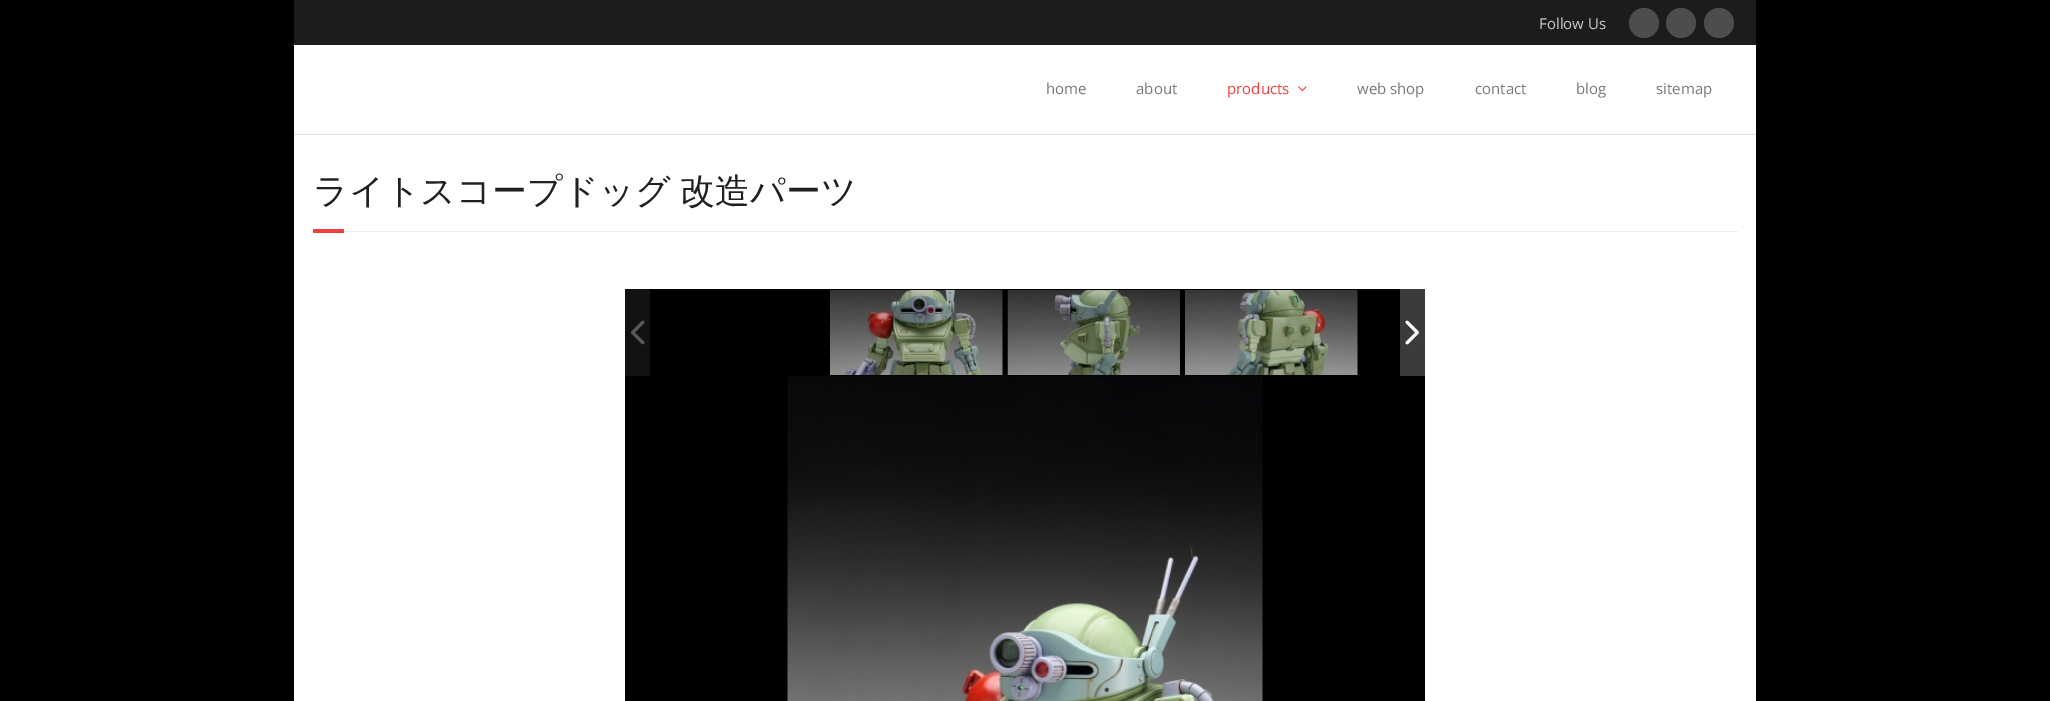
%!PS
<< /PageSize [2050 701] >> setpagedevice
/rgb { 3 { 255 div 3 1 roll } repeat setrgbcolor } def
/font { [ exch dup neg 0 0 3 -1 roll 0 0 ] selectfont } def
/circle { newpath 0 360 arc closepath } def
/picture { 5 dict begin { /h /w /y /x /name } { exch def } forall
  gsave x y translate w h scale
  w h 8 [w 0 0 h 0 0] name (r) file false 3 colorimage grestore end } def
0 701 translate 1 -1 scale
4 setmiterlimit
0 0 0 rgb
0 0 2050 701 rectfill
255 255 255 rgb
294 45 1462 656 rectfill
28 28 28 rgb
294 0 1462 45 rectfill
77 77 77 rgb
1644 23 15 circle fill
1681 23 15 circle fill
1719 23 15 circle fill
224 224 224 rgb
294 134 1462 1 rectfill
(img/1.rgb) 1298 86 9 6 picture
[
  [313 229 31 4 243 63 63]
  [344 231 1394 1 238 238 238]
  [625 289 800 412 0 0 0]
  [625 289 25 87 18 18 18]
] { aload pop rgb rectfill } forall
(img/2.rgb) 631 320 14 25 picture
(img/3.rgb) 830 290 173 85 picture
(img/4.rgb) 1007 290 173 85 picture
(img/5.rgb) 1185 290 173 85 picture
59 59 59 rgb
1400 289 25 87 rectfill
(img/6.rgb) 1405 320 14 25 picture
(img/7.rgb) 787 376 476 325 picture
/OpenSans-Regular 15 font
204 204 204 rgb
1539 29 moveto (Follow Us) show
119 119 119 rgb
1046 94 moveto (home) show
1136 94 moveto (about) show
243 63 63 rgb
1227 94 moveto (products) show
119 119 119 rgb
[
  [(web shop) 1357 94]
  [(contact) 1475 94]
  [(blog) 1576 94]
  [(sitemap) 1656 94]
] { aload pop moveto show } forall
/WenQuanYiZenHei-Medium 35 font
32 32 32 rgb
313 203 moveto -1 0 32 (ライトスコープドッグ 改造パーツ) widthshow
showpage
